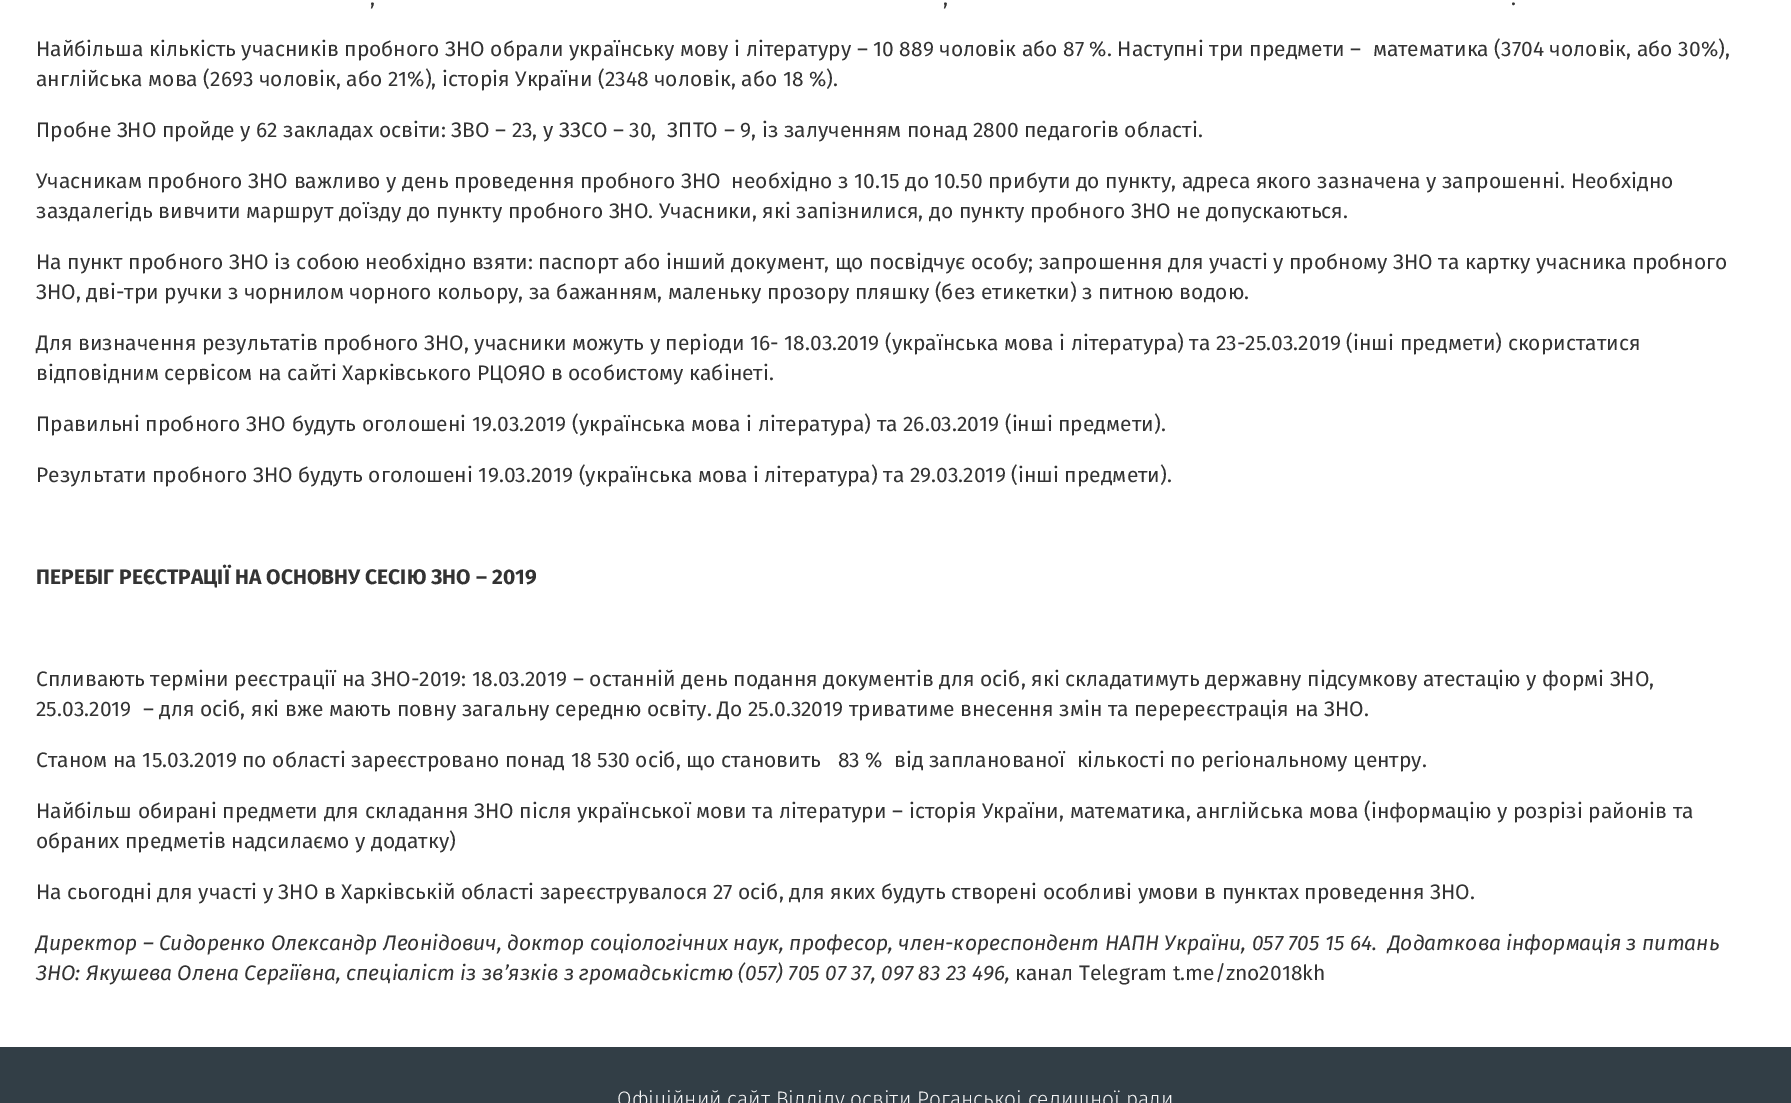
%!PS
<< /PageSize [1791 1103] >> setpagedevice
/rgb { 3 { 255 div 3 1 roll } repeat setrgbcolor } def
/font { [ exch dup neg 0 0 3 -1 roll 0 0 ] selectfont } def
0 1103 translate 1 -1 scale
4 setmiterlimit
255 255 255 rgb
0 0 1791 1103 rectfill
50 62 70 rgb
0 1047 1791 56 rectfill
/FiraSans-Regular 21 font
51 51 51 rgb
[
  [(,) 370 5]
  [(,) 943 5]
  [(.) 1511 5]
  [(Найбільша кількість учасників пробного ЗНО обрали українську мову і літературу – 10 889 чоловік або 87 %. Наступні три предмети –  математика \(3704 чоловік, або 30%\),) 36 56]
  [(англійська мова \(2693 чоловік, або 21%\), історія України \(2348 чоловік, або 18 %\).) 36 86]
  [(Пробне ЗНО пройде у 62 закладах освіти: ЗВО – 23, у ЗЗСО – 30,  ЗПТО – 9, із залученням понад 2800 педагогів області.) 36 137]
  [(Учасникам пробного ЗНО важливо у день проведення пробного ЗНО  необхідно з 10.15 до 10.50 прибути до пункту, адреса якого зазначена у запрошенні. Необхідно) 36 188]
  [(заздалегідь вивчити маршрут доїзду до пункту пробного ЗНО. Учасники, які запізнилися, до пункту пробного ЗНО не допускаються.) 36 218]
  [(На пункт пробного ЗНО із собою необхідно взяти: паспорт або інший документ, що посвідчує особу; запрошення для участі у пробному ЗНО та картку учасника пробного) 36 269]
  [(ЗНО, дві-три ручки з чорнилом чорного кольору, за бажанням, маленьку прозору пляшку \(без етикетки\) з питною водою.) 36 299]
  [(Для визначення результатів пробного ЗНО, учасники можуть у періоди 16- 18.03.2019 \(українська мова і література\) та 23-25.03.2019 \(інші предмети\) скористатися) 36 350]
  [(відповідним сервісом на сайті Харківського РЦОЯО в особистому кабінеті.) 36 380]
  [(Правильні пробного ЗНО будуть оголошені 19.03.2019 \(українська мова і література\) та 26.03.2019 \(інші предмети\).) 36 431]
  [(Результати пробного ЗНО будуть оголошені 19.03.2019 \(українська мова і література\) та 29.03.2019 \(інші предмети\).) 36 482]
] { aload pop moveto show } forall
/FiraSans-Bold 21 font
36 584 moveto (ПЕРЕБІГ РЕЄСТРАЦІЇ НА ОСНОВНУ СЕСІЮ ЗНО – 2019) show
/FiraSans-Regular 21 font
[
  [(Спливають терміни реєстрації на ЗНО-2019: 18.03.2019 – останній день подання документів для осіб, які складатимуть державну підсумкову атестацію у формі ЗНО,) 36 686]
  [(25.03.2019  – для осіб, які вже мають повну загальну середню освіту. До 25.0.32019 триватиме внесення змін та перереєстрація на ЗНО.) 36 716]
  [(Станом на 15.03.2019 по області зареєстровано понад 18 530 осіб, що становить   83 %  від запланованої  кількості по регіональному центру.) 36 767]
  [(Найбільш обирані предмети для складання ЗНО після української мови та літератури – історія України, математика, англійська мова \(інформацію у розрізі районів та) 36 818]
  [(обраних предметів надсилаємо у додатку\)) 36 848]
  [(На сьогодні для участі у ЗНО в Харківській області зареєструвалося 27 осіб, для яких будуть створені особливі умови в пунктах проведення ЗНО.) 36 899]
] { aload pop moveto show } forall
/FiraSans-Italic 21 font
36 950 moveto (Директор – Сидоренко Олександр Леонідович, доктор соціологічних наук, професор, член-кореспондент НАПН України, 057 705 15 64.  Додаткова інформація з питань) show
36 980 moveto (ЗНО: Якушева Олена Сергіївна, спеціаліст із зв’язків з громадськістю \(057\) 705 07 37, 097 83 23 496,) show
/FiraSans-Regular 21 font
1015 980 moveto (канал Telegram t.me/zno2018kh) show
/FiraSans-Light 21 font
245 245 246 rgb
617 1106 moveto (Офіційний сайт Відділу освіти Роганськоі селищної ради) show
showpage
